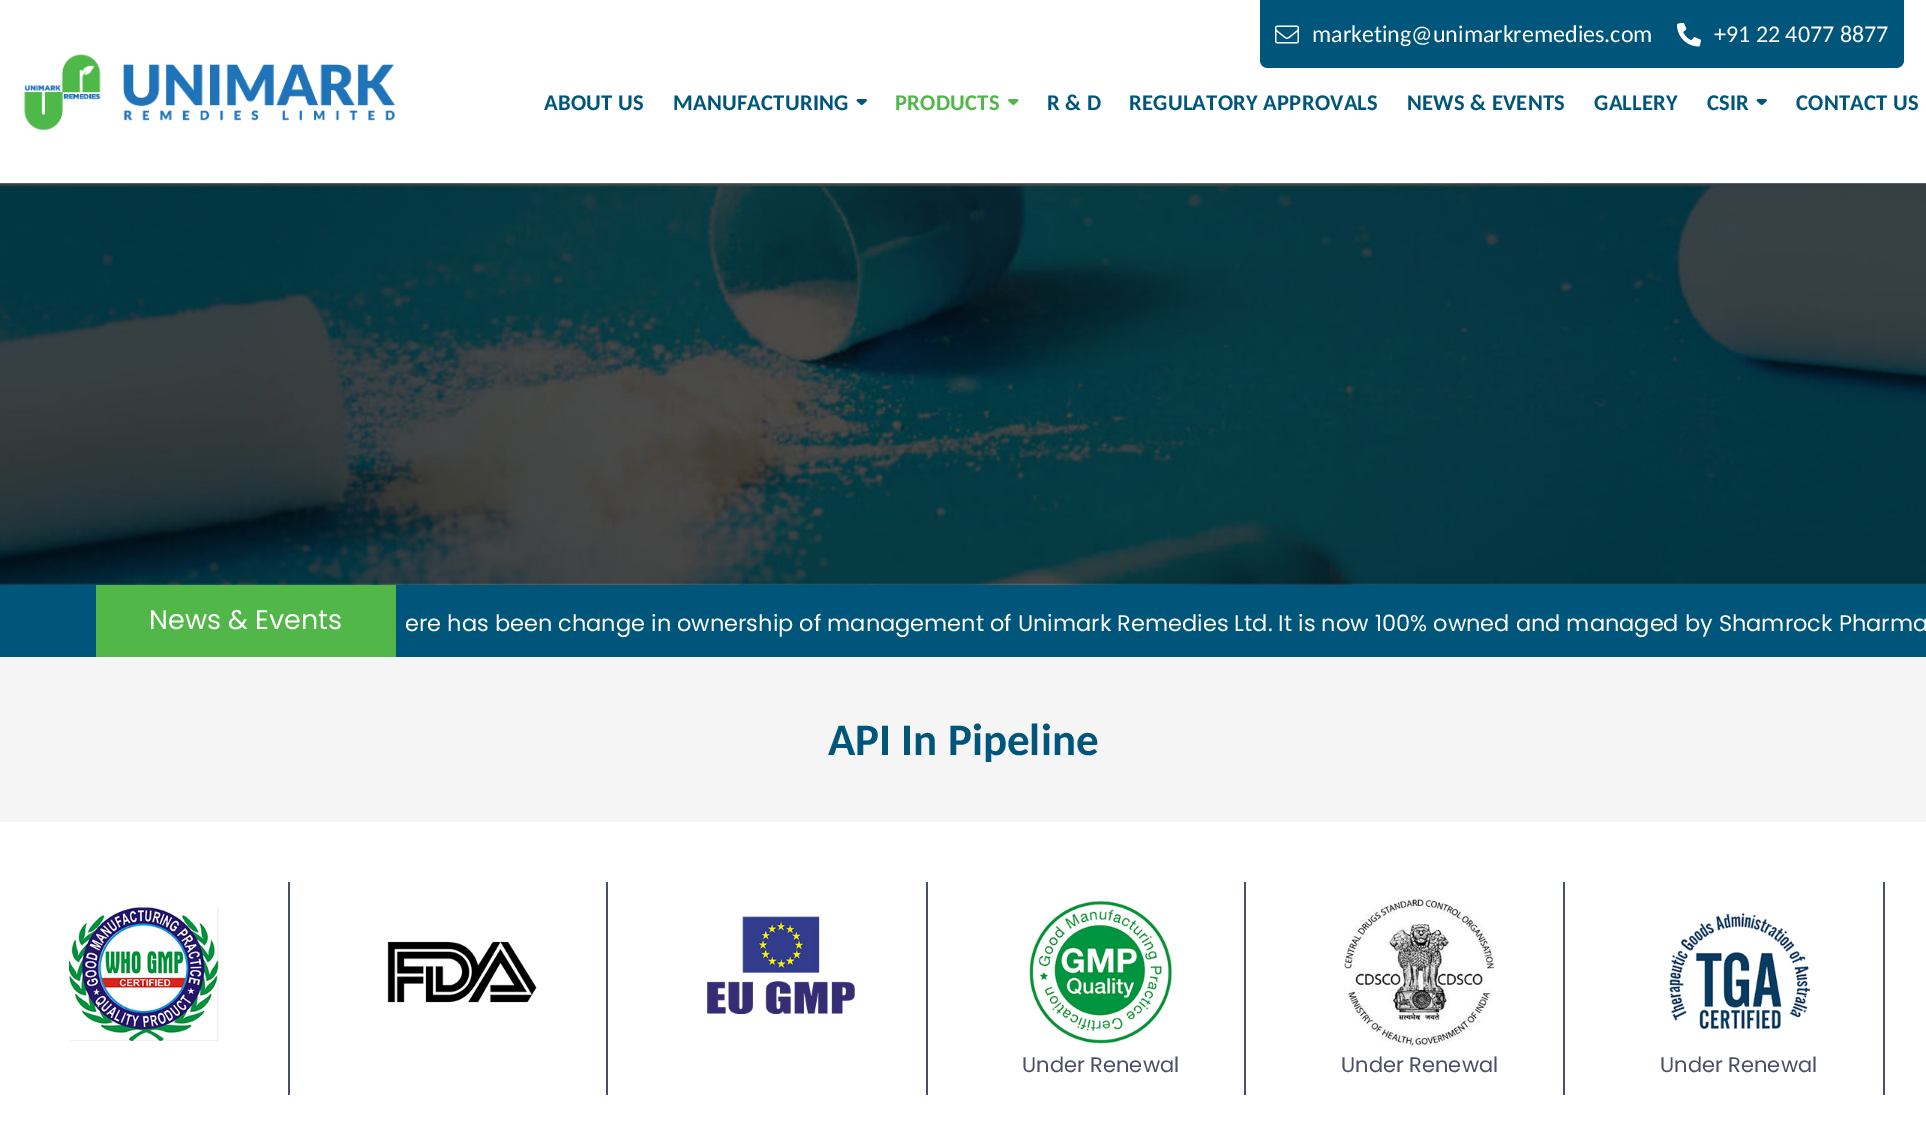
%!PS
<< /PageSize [1926 1122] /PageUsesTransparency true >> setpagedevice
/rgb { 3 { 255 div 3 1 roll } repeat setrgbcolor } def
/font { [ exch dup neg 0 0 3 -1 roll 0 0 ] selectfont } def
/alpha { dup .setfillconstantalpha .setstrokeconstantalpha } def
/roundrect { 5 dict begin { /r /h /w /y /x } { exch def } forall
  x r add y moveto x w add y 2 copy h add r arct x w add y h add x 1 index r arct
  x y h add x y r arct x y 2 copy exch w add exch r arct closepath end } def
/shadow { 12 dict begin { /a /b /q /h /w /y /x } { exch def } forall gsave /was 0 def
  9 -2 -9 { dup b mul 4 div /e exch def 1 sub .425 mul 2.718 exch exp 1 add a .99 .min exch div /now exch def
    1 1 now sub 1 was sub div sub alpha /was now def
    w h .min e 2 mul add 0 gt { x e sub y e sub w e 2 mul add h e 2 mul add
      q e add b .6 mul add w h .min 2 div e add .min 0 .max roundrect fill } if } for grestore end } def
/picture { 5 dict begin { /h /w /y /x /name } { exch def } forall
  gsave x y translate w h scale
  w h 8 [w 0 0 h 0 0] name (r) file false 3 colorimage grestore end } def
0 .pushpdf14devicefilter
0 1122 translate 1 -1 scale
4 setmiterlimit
245 245 246 rgb
0 0 1926 1122 rectfill
(img/6.rgb) 0 183 1926 402 picture
0 0 0 rgb
0 0 1926 183 0 7.5 0.08 shadow
255 255 255 rgb
0 0 1926 183 rectfill
0.17 alpha
0 183 1926 1 rectfill
1 alpha
(img/1.rgb) 24 54 371 77 picture
0 86 122 rgb
1260 0 moveto 1904 0 lineto 1904 60 lineto 1904 64.5 1900.5 68 1896 68 curveto 1268 68 lineto 1263.5 68 1260 64.5 1260 60 curveto closepath fill
(img/2.rgb) 1275 25 24 19 picture
(img/3.rgb) 1677 23 24 24 picture
(img/4.rgb) 856 99 11 6 picture
(img/5.rgb) 1008 99 11 6 picture
(img/4.rgb) 1756 99 11 6 picture
[
  [0 585 96 72 0 86 122]
  [96 585 300 72 80 183 72]
  [396 585 1530 72 0 86 122]
  [0 822 1926 300 255 255 255]
  [288 882 2 213 73 79 102]
] { aload pop rgb rectfill } forall
(img/7.rgb) 69 907 150 134 picture
606 882 2 213 rectfill
(img/8.rgb) 387 941 150 62 picture
926 882 2 213 rectfill
(img/9.rgb) 707 916 148 98 picture
1244 882 2 213 rectfill
(img/10.rgb) 1029 900 144 144 picture
1563 882 2 213 rectfill
(img/11.rgb) 1344 898 150 148 picture
1883 882 2 213 rectfill
(img/12.rgb) 1669 913 142 116 picture
/Carlito-Regular 24 font
255 255 255 rgb
1312 42 moveto (marketing@unimarkremedies.com) show
1714 42 moveto (+91 22 4077 8877) show
/Carlito-Bold 22.5 font
0 86 122 rgb
544 110 moveto 0.25 0 (ABOUT US) ashow
673 110 moveto 0.25 0 (MANUFACTURING) ashow
78 184 72 rgb
895 110 moveto 0.25 0 (PRODUCTS) ashow
0 86 122 rgb
1047 110 moveto 0.25 0 (R & D) ashow
1129 110 moveto 0.25 0 (REGULATORY APPROVALS) ashow
1407 110 moveto 0.25 0 (NEWS & EVENTS) ashow
1594 110 moveto 0.25 0 (GALLERY) ashow
1707 110 moveto 0.25 0 (CSIR) ashow
1796 110 moveto 0.25 0 (CONTACT US) ashow
/Poppins-Regular 27 font
255 255 255 rgb
149 629 moveto (News & Events) show
/Poppins-Regular 22.5 font
405 631 moveto (ere has been change in ownership of management of Unimark Remedies Ltd. It is now 100% owned and managed by Shamrock Pharma) show
/Carlito-Bold 45 font
0 86 122 rgb
828 755 moveto (API In Pipeline) show
/Poppins-Regular 21 font
73 79 102 rgb
[
  [(Under Renewal) 1022 1072]
  [(Under Renewal) 1341 1072]
  [(Under Renewal) 1660 1072]
] { aload pop moveto show } forall
.poppdf14devicefilter showpage
